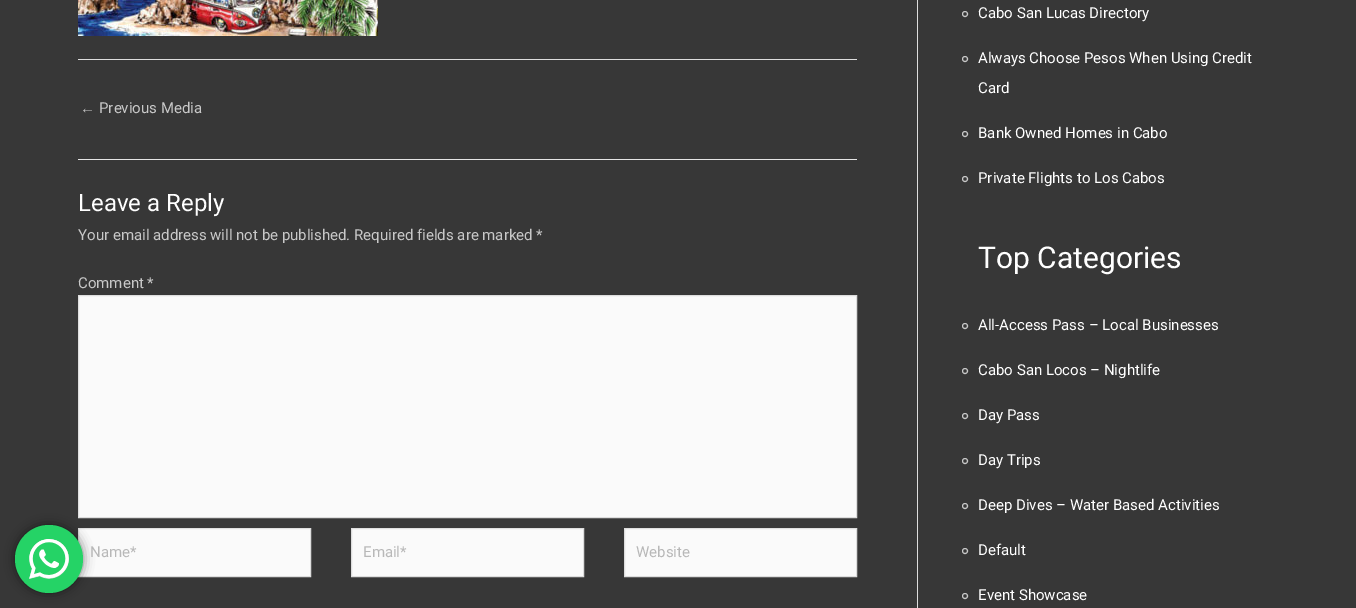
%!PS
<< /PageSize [1356 608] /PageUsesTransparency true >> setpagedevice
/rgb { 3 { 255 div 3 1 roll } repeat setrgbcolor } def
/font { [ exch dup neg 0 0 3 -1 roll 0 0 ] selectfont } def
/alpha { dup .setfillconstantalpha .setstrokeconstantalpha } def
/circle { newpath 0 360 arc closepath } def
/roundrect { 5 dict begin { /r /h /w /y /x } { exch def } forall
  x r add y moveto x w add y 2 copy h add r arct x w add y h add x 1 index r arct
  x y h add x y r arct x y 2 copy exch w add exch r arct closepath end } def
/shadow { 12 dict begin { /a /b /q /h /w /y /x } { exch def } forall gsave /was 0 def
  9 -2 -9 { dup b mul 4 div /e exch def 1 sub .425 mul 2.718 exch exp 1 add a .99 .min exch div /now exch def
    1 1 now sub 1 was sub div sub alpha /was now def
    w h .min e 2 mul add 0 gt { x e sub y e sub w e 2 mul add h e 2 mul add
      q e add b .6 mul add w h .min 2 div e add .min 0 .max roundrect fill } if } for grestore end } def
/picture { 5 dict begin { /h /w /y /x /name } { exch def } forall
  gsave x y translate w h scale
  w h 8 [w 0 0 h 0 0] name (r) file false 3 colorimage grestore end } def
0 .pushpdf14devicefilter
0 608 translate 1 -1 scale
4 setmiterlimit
55 55 55 rgb
0 0 1356 608 rectfill
250 250 250 rgb
78.5 295.5 moveto 856.5 295.5 lineto 856.5 517.5 lineto 78.5 517.5 lineto closepath gsave fill grestore
221 221 221 rgb
stroke
250 250 250 rgb
78.5 528.5 moveto 310.5 528.5 lineto 310.5 576.5 lineto 78.5 576.5 lineto closepath gsave fill grestore
221 221 221 rgb
stroke
0 0 0 rgb
15 525 68 68 34 5.5 0.5 shadow
37 211 102 rgb
49 559 34 circle fill
(img/1.rgb) 29 539 40 40 picture
221 221 221 rgb
917 0 1 608 rectfill
(img/2.rgb) 78 0 300 36 picture
78 59 779 1 rectfill
229 229 229 rgb
78 159 779 1 rectfill
250 250 250 rgb
351.5 528.5 moveto 583.5 528.5 lineto 583.5 576.5 lineto 351.5 576.5 lineto closepath gsave fill grestore
221 221 221 rgb
stroke
250 250 250 rgb
624.5 528.5 moveto 856.5 528.5 lineto 856.5 576.5 lineto 624.5 576.5 lineto closepath gsave fill grestore
221 221 221 rgb
stroke
200 200 200 rgb
965 14 2.5 circle stroke
965 59 2.5 circle stroke
965 134 2.5 circle stroke
965 179 2.5 circle stroke
965 326 2.5 circle stroke
965 371 2.5 circle stroke
965 416 2.5 circle stroke
965 461 2.5 circle stroke
965 506 2.5 circle stroke
965 551 2.5 circle stroke
965 596 2.5 circle stroke
/LiberationSans-Regular 15 font
80 113 moveto (←) show
/Roboto-Regular 15 font
99 113 moveto (Previous Media) show
/Roboto-Regular 24 font
255 255 255 rgb
78 211 moveto (Leave a Reply) show
/Roboto-Regular 15 font
200 200 200 rgb
78 240 moveto (Your email address will not be published. Required fields are marked *) show
78 288 moveto (Comment *) show
184 184 184 rgb
[
  [(Name*) 90 557]
  [(Email*) 363 557]
  [(Website) 636 557]
] { aload pop moveto show } forall
255 255 255 rgb
[
  [(Cabo San Lucas Directory) 978 18]
  [(Always Choose Pesos When Using Credit) 978 63]
  [(Card) 978 93]
  [(Bank Owned Homes in Cabo) 978 138]
  [(Private Flights to Los Cabos) 978 183]
] { aload pop moveto show } forall
/Roboto-Regular 30 font
978 268 moveto (Top Categories) show
/Roboto-Regular 15 font
[
  [(All-Access Pass – Local Businesses) 978 330]
  [(Cabo San Locos – Nightlife) 978 375]
  [(Day Pass) 978 420]
  [(Day Trips) 978 465]
  [(Deep Dives – Water Based Activities) 978 510]
  [(Default) 978 555]
  [(Event Showcase) 978 600]
] { aload pop moveto show } forall
.poppdf14devicefilter showpage
